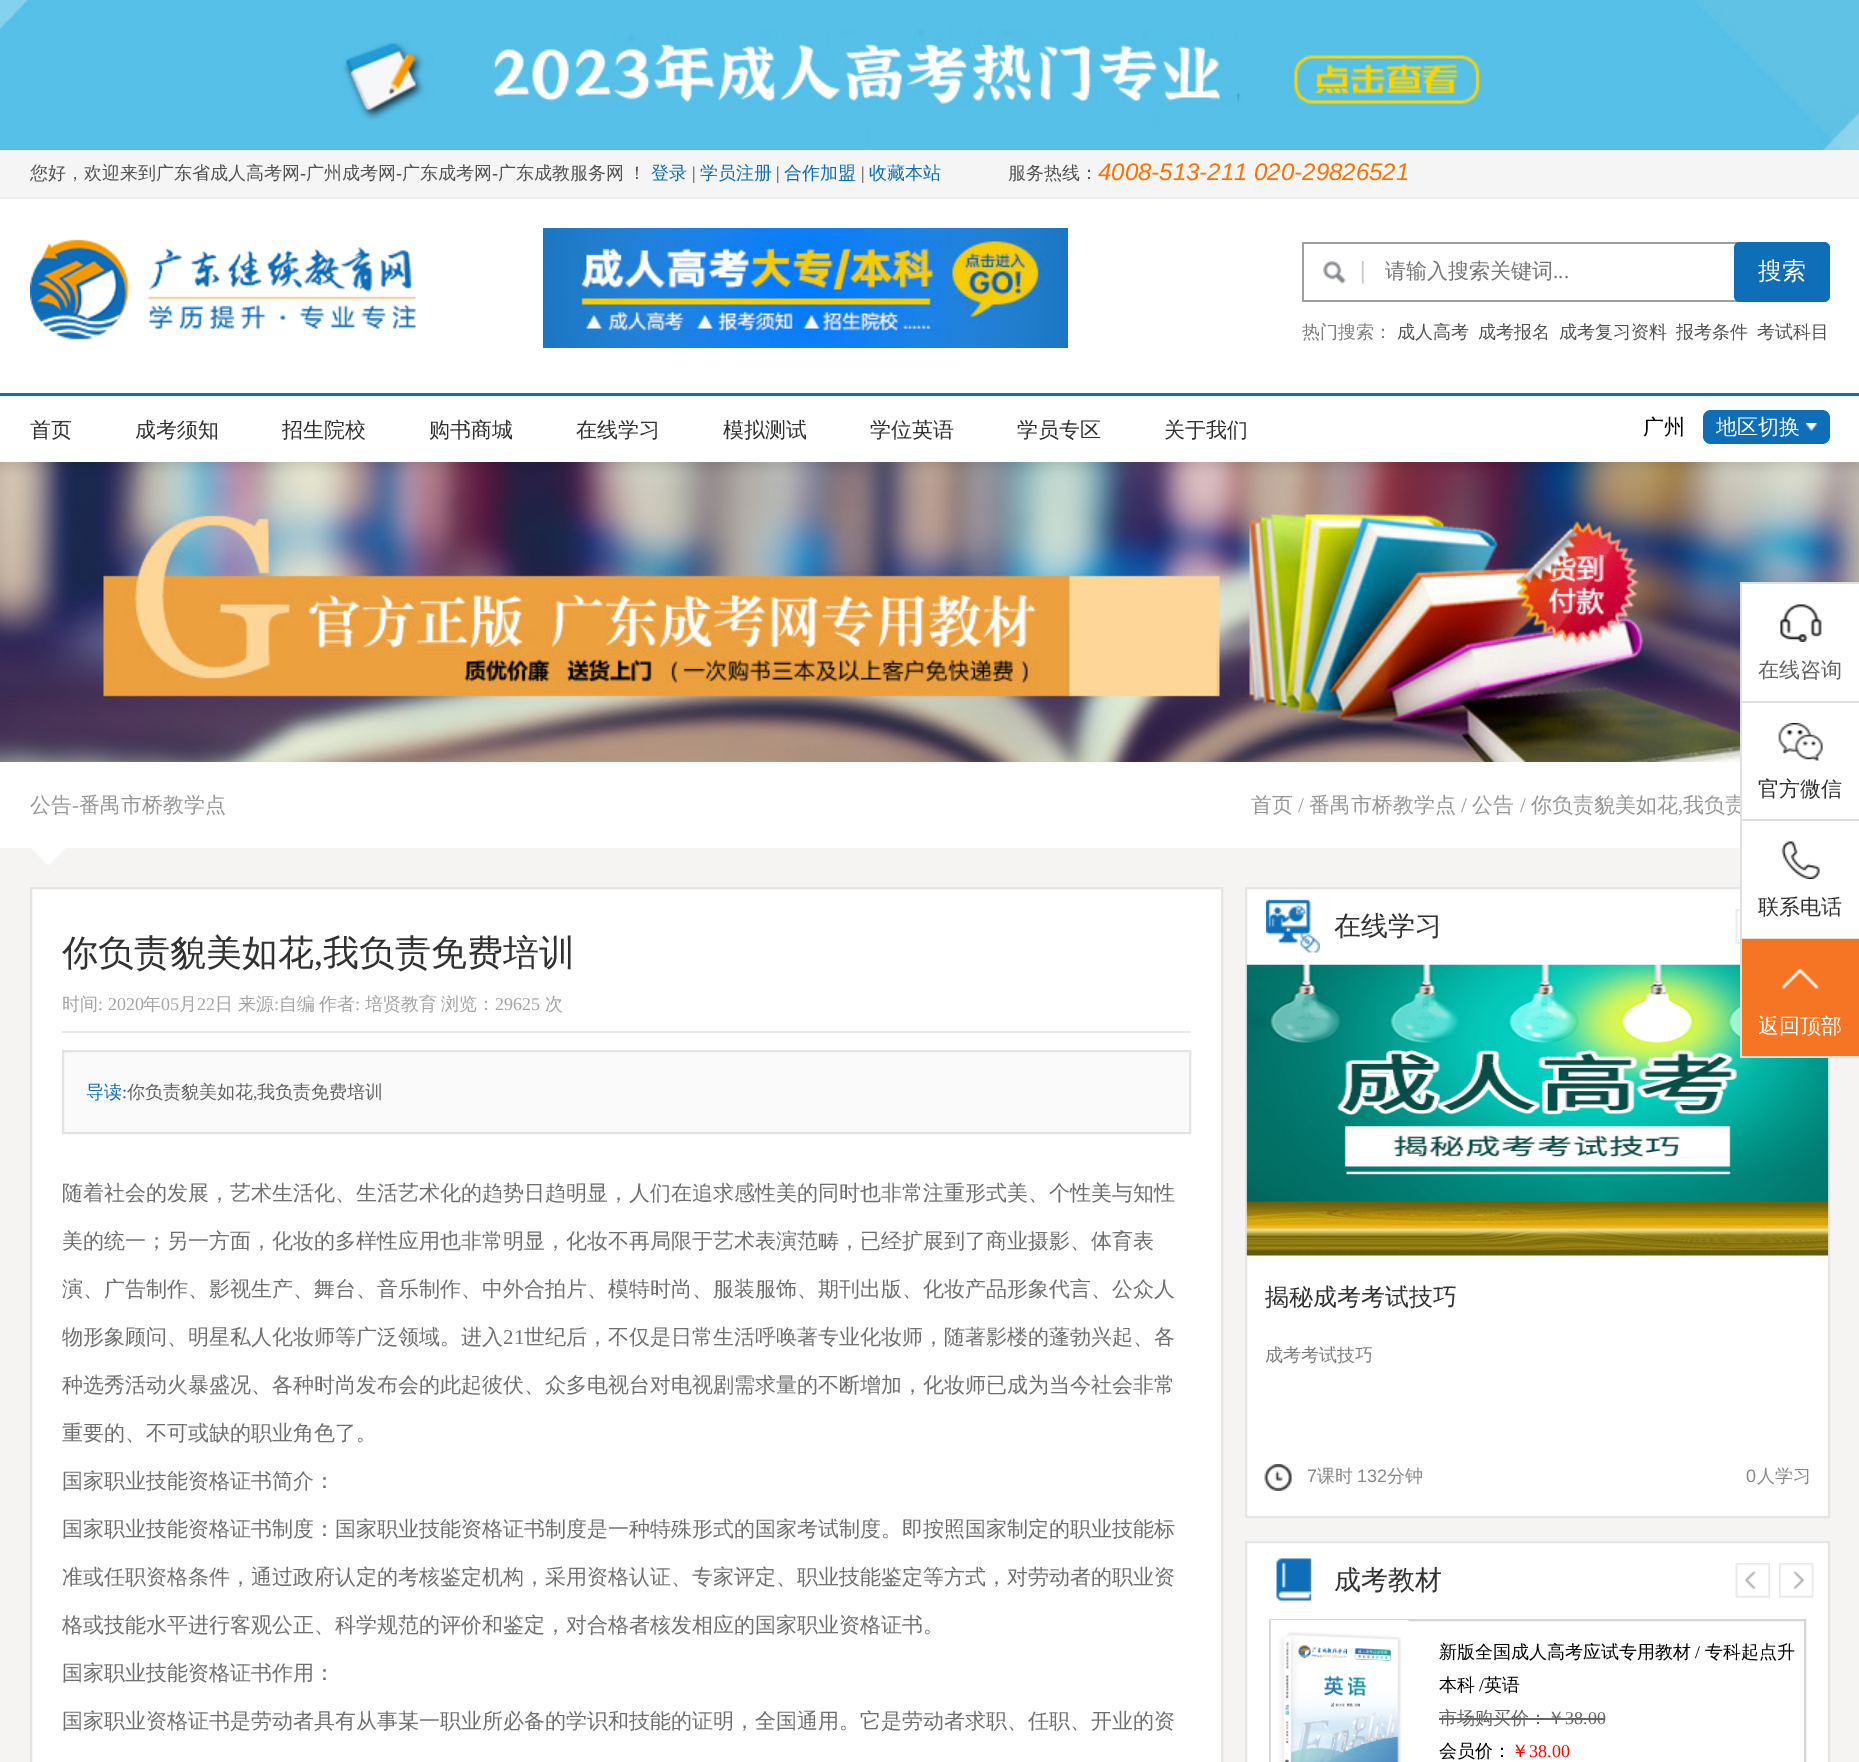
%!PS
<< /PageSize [1859 1762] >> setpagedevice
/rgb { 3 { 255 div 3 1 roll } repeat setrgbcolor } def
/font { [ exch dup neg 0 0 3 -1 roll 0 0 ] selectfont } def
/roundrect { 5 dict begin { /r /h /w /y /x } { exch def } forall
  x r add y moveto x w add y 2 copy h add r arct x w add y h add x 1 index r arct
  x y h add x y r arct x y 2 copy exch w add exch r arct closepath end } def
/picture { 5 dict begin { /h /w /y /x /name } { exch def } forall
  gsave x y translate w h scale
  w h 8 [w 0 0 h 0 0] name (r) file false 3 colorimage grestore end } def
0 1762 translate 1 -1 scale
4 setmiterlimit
255 255 255 rgb
0 0 1859 1762 rectfill
(img/1.rgb) 0 0 1859 150 picture
[
  [0 150 1859 47 245 245 245]
  [0 197 1859 2 237 237 237]
  [0 393 1859 3 14 110 184]
] { aload pop rgb rectfill } forall
(img/2.rgb) 30 239 386 101 picture
(img/3.rgb) 543 228 525 120 picture
(img/4.rgb) 1323 261 41 23 picture
[
  [1302 242 438 2 159 159 159]
  [1302 300 438 2 159 159 159]
  [1302 242 2 60 159 159 159]
] { aload pop rgb rectfill } forall
14 110 184 rgb
1734 242 96 60 6 roundrect fill
243 242 240 rgb
0 396 1859 2 rectfill
14 110 184 rgb
1703 410 127 34 8 roundrect fill
(img/5.rgb) 1806 423 11 8 picture
(img/6.rgb) 0 462 1859 300 picture
245 244 242 rgb
0 848 1859 914 rectfill
(img/7.rgb) 31 848 35 17 picture
224 224 224 rgb
1740 582 119 2 rectfill
255 255 255 rgb
1246 888 moveto 1829 888 lineto 1829 1517 lineto 1246 1517 lineto closepath gsave fill grestore
229 229 229 rgb
2 setlinewidth
stroke
224 224 224 rgb
1742 938 117 1 rectfill
(img/14.rgb) 1246 964 583 292 picture
246 117 36 rgb
1742 939 117 117 rectfill
224 224 224 rgb
1742 1056 117 2 rectfill
(img/11.rgb) 1781 968 38 21 picture
255 255 255 rgb
31 888 moveto 1222 888 lineto 1222 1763 lineto 31 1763 lineto closepath gsave fill grestore
228 228 228 rgb
stroke
233 233 233 rgb
62 1031 1129 2 rectfill
250 250 250 rgb
63 1051 moveto 1190 1051 lineto 1190 1133 lineto 63 1133 lineto closepath gsave fill grestore
228 228 228 rgb
stroke
(img/12.rgb) 1266 899 54 54 picture
(img/13.rgb) 1735 909 5 35 picture
(img/15.rgb) 1264 1464 28 27 picture
255 255 255 rgb
1246 1542 moveto 1829 1542 lineto 1829 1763 lineto 1246 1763 lineto closepath gsave fill grestore
229 229 229 rgb
stroke
(img/16.rgb) 1276 1558 36 43 picture
(img/17.rgb) 1735 1563 35 35 picture
(img/18.rgb) 1779 1563 35 35 picture
213 213 213 rgb
1270 1620 535 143 rectstroke
(img/19.rgb) 1270 1620 139 142 picture
/WenQuanYiZenHei-Medium 18 font
82 82 82 rgb
30 179 moveto (您好，欢迎来到广东省成人高考网) show
/LiberationSerif-Regular 18 font
300 179 moveto (-) show
/WenQuanYiZenHei-Medium 18 font
306 179 moveto (广州成考网) show
/LiberationSerif-Regular 18 font
396 179 moveto (-) show
/WenQuanYiZenHei-Medium 18 font
402 179 moveto (广东成考网) show
/LiberationSerif-Regular 18 font
492 179 moveto (-) show
/WenQuanYiZenHei-Medium 18 font
498 179 moveto -1 0 32 (广东成教服务网 ！) widthshow
14 110 184 rgb
651 179 moveto (登录) show
/LiberationSerif-Regular 18 font
82 82 82 rgb
692 179 moveto (|) show
/WenQuanYiZenHei-Medium 18 font
14 110 184 rgb
700 179 moveto (学员注册) show
/LiberationSerif-Regular 18 font
82 82 82 rgb
776 179 moveto (|) show
/WenQuanYiZenHei-Medium 18 font
14 110 184 rgb
784 179 moveto (合作加盟) show
/LiberationSerif-Regular 18 font
82 82 82 rgb
861 179 moveto (|) show
/WenQuanYiZenHei-Medium 18 font
14 110 184 rgb
869 179 moveto (收藏本站) show
82 82 82 rgb
1008 179 moveto (服务热线：) show
/LiberationSans-Italic 24 font
255 114 0 rgb
1098 180 moveto (4008-513-211 020-29826521) show
/WenQuanYiZenHei-Medium 21 font
117 117 117 rgb
1385 278 moveto (请输入搜索关键词) show
/LiberationSerif-Regular 21 font
1553 278 moveto (...) show
/WenQuanYiZenHei-Medium 24 font
255 255 255 rgb
1758 279 moveto (搜索) show
/WenQuanYiZenHei-Medium 18 font
125 125 125 rgb
1302 338 moveto (热门搜索：) show
82 82 82 rgb
[
  [(成人高考) 1397 338]
  [(成考报名) 1478 338]
  [(成考复习资料) 1559 338]
  [(报考条件) 1676 338]
  [(考试科目) 1757 338]
] { aload pop moveto show } forall
/WenQuanYiZenHei-Medium 21 font
49 49 49 rgb
[
  [(首页) 30 437]
  [(成考须知) 135 437]
  [(招生院校) 282 437]
  [(购书商城) 429 437]
  [(在线学习) 576 437]
  [(模拟测试) 723 437]
  [(学位英语) 870 437]
  [(学员专区) 1017 437]
  [(关于我们) 1164 437]
] { aload pop moveto show } forall
0 0 0 rgb
1643 434 moveto (广州) show
255 255 255 rgb
1716 434 moveto (地区切换) show
152 151 151 rgb
30 812 moveto (公告) show
/LiberationSerif-Regular 21 font
72 812 moveto (-) show
/WenQuanYiZenHei-Medium 21 font
79 812 moveto (番禺市桥教学点) show
1251 812 moveto (首页) show
/LiberationSerif-Regular 21 font
1298 812 moveto (/) show
/WenQuanYiZenHei-Medium 21 font
1309 812 moveto (番禺市桥教学点) show
/LiberationSerif-Regular 21 font
1461 812 moveto (/) show
/WenQuanYiZenHei-Medium 21 font
1472 812 moveto (公告) show
/LiberationSerif-Regular 21 font
1520 812 moveto (/) show
/WenQuanYiZenHei-Medium 21 font
1531 812 moveto (你负责貌美如花) show
/LiberationSerif-Regular 21 font
1678 812 moveto (,) show
/WenQuanYiZenHei-Medium 21 font
1683 812 moveto (我负责) show
[
  [1742 584 117 354 255 255 255]
  [1740 582 2 476 224 224 224]
  [1742 701 117 2 224 224 224]
] { aload pop rgb rectfill } forall
(img/8.rgb) 1780 604 42 38 picture
99 99 99 rgb
1758 677 moveto (在线咨询) show
224 224 224 rgb
1742 819 117 2 rectfill
(img/9.rgb) 1778 723 45 38 picture
49 49 49 rgb
1758 796 moveto (官方微信) show
(img/10.rgb) 1781 841 39 38 picture
1758 914 moveto (联系电话) show
255 255 255 rgb
1758 1033 moveto (返回顶部) show
/WenQuanYiZenHei-Medium 36 font
49 49 49 rgb
62 965 moveto (你负责貌美如花) show
/LiberationSerif-Regular 36 font
314 965 moveto (,) show
/WenQuanYiZenHei-Medium 36 font
323 965 moveto (我负责免费培训) show
/WenQuanYiZenHei-Medium 18 font
165 165 165 rgb
62 1010 moveto (时间) show
/LiberationSerif-Regular 18 font
98 1010 moveto (: 2020) show
/WenQuanYiZenHei-Medium 18 font
143 1010 moveto (年) show
/LiberationSerif-Regular 18 font
161 1010 moveto (05) show
/WenQuanYiZenHei-Medium 18 font
179 1010 moveto (月) show
/LiberationSerif-Regular 18 font
197 1010 moveto (22) show
/WenQuanYiZenHei-Medium 18 font
215 1010 moveto (日) show
238 1010 moveto (来源) show
/LiberationSerif-Regular 18 font
274 1010 moveto (:) show
/WenQuanYiZenHei-Medium 18 font
279 1010 moveto (自编) show
319 1010 moveto (作者) show
/LiberationSerif-Regular 18 font
355 1010 moveto (:) show
/WenQuanYiZenHei-Medium 18 font
365 1010 moveto (培贤教育) show
441 1010 moveto (浏览：) show
/LiberationSerif-Regular 18 font
495 1010 moveto (29625) show
/WenQuanYiZenHei-Medium 18 font
545 1010 moveto (次) show
14 110 184 rgb
86 1098 moveto (导读) show
/LiberationSerif-Regular 18 font
122 1098 moveto (:) show
/WenQuanYiZenHei-Medium 18 font
99 99 99 rgb
127 1098 moveto (你负责貌美如花) show
/LiberationSerif-Regular 18 font
253 1098 moveto (,) show
/WenQuanYiZenHei-Medium 18 font
257 1098 moveto (我负责免费培训) show
/WenQuanYiZenHei-Medium 21 font
111 111 111 rgb
[
  [(随着社会的发展，艺术生活化、生活艺术化的趋势日趋明显，人们在追求感性美的同时也非常注重形式美、个性美与知性) 62 1200]
  [(美的统一；另一方面，化妆的多样性应用也非常明显，化妆不再局限于艺术表演范畴，已经扩展到了商业摄影、体育表) 62 1248]
  [(演、广告制作、影视生产、舞台、音乐制作、中外合拍片、模特时尚、服装服饰、期刊出版、化妆产品形象代言、公众人) 62 1296]
  [(物形象顾问、明星私人化妆师等广泛领域。进入) 62 1344]
] { aload pop moveto show } forall
/LiberationSerif-Regular 21 font
503 1344 moveto (21) show
/WenQuanYiZenHei-Medium 21 font
[
  [(世纪后，不仅是日常生活呼唤著专业化妆师，随著影楼的蓬勃兴起、各) 524 1344]
  [(种选秀活动火暴盛况、各种时尚发布会的此起彼伏、众多电视台对电视剧需求量的不断增加，化妆师已成为当今社会非常) 62 1392]
  [(重要的、不可或缺的职业角色了。) 62 1440]
  [(国家职业技能资格证书简介：) 62 1488]
  [(国家职业技能资格证书制度：国家职业技能资格证书制度是一种特殊形式的国家考试制度。即按照国家制定的职业技能标) 62 1536]
  [(准或任职资格条件，通过政府认定的考核鉴定机构，采用资格认证、专家评定、职业技能鉴定等方式，对劳动者的职业资) 62 1584]
  [(格或技能水平进行客观公正、科学规范的评价和鉴定，对合格者核发相应的国家职业资格证书。) 62 1632]
  [(国家职业技能资格证书作用：) 62 1680]
  [(国家职业资格证书是劳动者具有从事某一职业所必备的学识和技能的证明，全国通用。它是劳动者求职、任职、开业的资) 62 1728]
] { aload pop moveto show } forall
/WenQuanYiZenHei-Medium 27 font
49 49 49 rgb
1334 935 moveto (在线学习) show
/WenQuanYiZenHei-Medium 24 font
1265 1305 moveto (揭秘成考考试技巧) show
/WenQuanYiZenHei-Medium 18 font
125 125 125 rgb
1265 1361 moveto (成考考试技巧) show
/LiberationSans-Regular 18 font
136 136 136 rgb
1307 1482 moveto (7) show
/WenQuanYiZenHei-Medium 18 font
1317 1482 moveto (课时) show
/LiberationSans-Regular 18 font
1357 1482 moveto (132) show
/WenQuanYiZenHei-Medium 18 font
1387 1482 moveto (分钟) show
/LiberationSans-Regular 18 font
1746 1482 moveto (0) show
/WenQuanYiZenHei-Medium 18 font
1757 1482 moveto (人学习) show
/WenQuanYiZenHei-Medium 27 font
49 49 49 rgb
1334 1589 moveto (成考教材) show
/WenQuanYiZenHei-Medium 18 font
0 0 0 rgb
1439 1658 moveto (新版全国成人高考应试专用教材) show
/LiberationSerif-Regular 18 font
1695 1658 moveto (/) show
/WenQuanYiZenHei-Medium 18 font
1705 1658 moveto (专科起点升) show
1439 1691 moveto (本科) show
/LiberationSerif-Regular 18 font
1479 1691 moveto (/) show
/WenQuanYiZenHei-Medium 18 font
1484 1691 moveto (英语) show
99 99 99 rgb
1439 1724 moveto (市场购买价：￥) show
/LiberationSerif-Regular 18 font
1565 1724 moveto (38.00) show
101 101 101 rgb
1439 1718 166 2 rectfill
/WenQuanYiZenHei-Medium 18 font
0 0 0 rgb
1439 1757 moveto (会员价：) show
255 0 0 rgb
1511 1757 moveto (￥) show
/LiberationSerif-Regular 18 font
1529 1757 moveto (38.00) show
showpage
